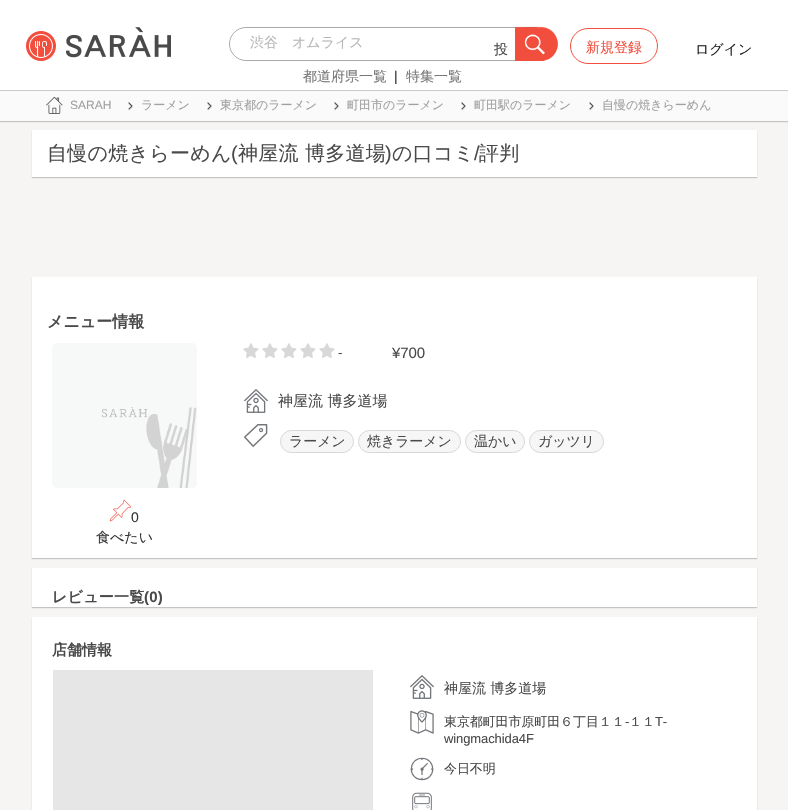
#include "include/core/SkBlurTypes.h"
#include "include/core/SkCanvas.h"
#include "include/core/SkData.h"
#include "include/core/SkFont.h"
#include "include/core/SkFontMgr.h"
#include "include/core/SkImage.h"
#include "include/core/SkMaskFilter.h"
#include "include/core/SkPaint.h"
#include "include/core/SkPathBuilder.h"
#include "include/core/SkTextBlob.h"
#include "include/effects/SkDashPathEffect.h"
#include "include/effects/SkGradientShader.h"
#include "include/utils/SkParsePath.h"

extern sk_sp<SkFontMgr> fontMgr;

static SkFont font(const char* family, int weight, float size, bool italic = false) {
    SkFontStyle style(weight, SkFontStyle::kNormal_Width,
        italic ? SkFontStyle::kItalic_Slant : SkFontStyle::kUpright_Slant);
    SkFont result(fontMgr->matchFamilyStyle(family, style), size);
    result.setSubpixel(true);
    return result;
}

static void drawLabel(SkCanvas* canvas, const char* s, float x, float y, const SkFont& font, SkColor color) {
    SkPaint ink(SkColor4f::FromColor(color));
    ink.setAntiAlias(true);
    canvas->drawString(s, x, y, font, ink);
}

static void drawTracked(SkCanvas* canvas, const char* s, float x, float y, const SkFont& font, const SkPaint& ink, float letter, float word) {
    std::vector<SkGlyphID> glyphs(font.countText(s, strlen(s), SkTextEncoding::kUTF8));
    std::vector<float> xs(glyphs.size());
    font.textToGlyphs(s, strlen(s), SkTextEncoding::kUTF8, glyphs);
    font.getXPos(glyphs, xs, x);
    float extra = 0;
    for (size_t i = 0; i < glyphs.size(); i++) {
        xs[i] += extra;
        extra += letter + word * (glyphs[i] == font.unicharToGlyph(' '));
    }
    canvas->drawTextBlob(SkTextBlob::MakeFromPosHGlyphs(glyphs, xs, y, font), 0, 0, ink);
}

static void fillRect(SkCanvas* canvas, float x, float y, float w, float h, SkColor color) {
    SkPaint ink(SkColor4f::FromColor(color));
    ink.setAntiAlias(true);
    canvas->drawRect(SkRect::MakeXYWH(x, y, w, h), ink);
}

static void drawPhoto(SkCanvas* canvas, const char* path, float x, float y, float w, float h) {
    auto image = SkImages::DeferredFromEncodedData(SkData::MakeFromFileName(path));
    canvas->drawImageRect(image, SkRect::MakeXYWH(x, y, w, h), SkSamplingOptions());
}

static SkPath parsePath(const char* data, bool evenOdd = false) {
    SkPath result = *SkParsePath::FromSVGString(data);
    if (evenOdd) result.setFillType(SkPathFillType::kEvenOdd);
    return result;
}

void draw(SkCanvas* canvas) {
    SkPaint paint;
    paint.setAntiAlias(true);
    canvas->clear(0xFFF7F4F4);
    paint.setColor(0x33000000);
    paint.setMaskFilter(SkMaskFilter::MakeBlur(kNormal_SkBlurStyle, 0.5f));
    canvas->drawRect(SkRect::MakeXYWH(0, 92, 788, 30), paint);
    paint.setMaskFilter(nullptr);
    fillRect(canvas, 0, 0, 788, 90, 0xFFFFFFFF);
    fillRect(canvas, 0, 90, 788, 1, 0xFFCDCACA);
    drawPhoto(canvas, "assets/img1.png", 26, 27, 145, 34);
    paint.setStroke(true);
    paint.setStrokeWidth(1);
    paint.setColor(0xFFAAAAAA);
    canvas->drawPath(parsePath("M246 27.5H525.5V60.5H246C237 60.5 229.5 53 229.5 44C229.5 35 237 27.5 246 27.5Z"), paint);
    SkFont font1 = font("WenQuanYi Zen Hei", 500, 14);
    drawLabel(canvas, "渋谷　オムライス", 250, 47, font1, 0xFFB7B7B7);
    paint.setColor(0xFF767676);
    canvas->drawRoundRect(SkRect::MakeXYWH(523.5f, 27.5f, 14, 33), 1.5f, 1.5f, paint);
    drawPhoto(canvas, "assets/img2.png", 515, 26, 43, 35);
    drawLabel(canvas, "都道府県一覧", 303, 81, font1, 0xFF777777);
    SkFont font2 = font("Liberation Sans", 400, 14);
    drawLabel(canvas, "|", 394, 81, font2, 0xFF333333);
    drawLabel(canvas, "特集一覧", 406, 81, font1, 0xFF777777);
    drawLabel(canvas, "投", 494, 54, font1, 0xFF4A4A4A);
    paint.setColor(0xFFF24E3D);
    canvas->drawRoundRect(SkRect::MakeXYWH(570.5f, 28.5f, 87, 35), 17.5f, 17.5f, paint);
    drawLabel(canvas, "新規登録", 586, 52, font1, 0xFFF24E3D);
    drawLabel(canvas, "ログイン", 695, 54, font1, 0xFF212121);
    fillRect(canvas, 0, 91, 788, 30, 0xFFFAFAFA);
    drawPhoto(canvas, "assets/img3.png", 46, 96, 17, 18);
    SkFont font3 = font("Liberation Sans", 400, 12);
    drawLabel(canvas, "SARAH", 70, 109, font3, 0xFFA0A0A0);
    drawPhoto(canvas, "assets/img4.png", 128, 102, 5, 9);
    SkFont font4 = font("WenQuanYi Zen Hei", 500, 12);
    drawLabel(canvas, "ラーメン", 141, 109, font4, 0xFFA0A0A0);
    drawPhoto(canvas, "assets/img4.png", 207, 102, 5, 9);
    drawLabel(canvas, "東京都のラーメン", 220, 109, font4, 0xFFA0A0A0);
    drawPhoto(canvas, "assets/img4.png", 334, 102, 5, 9);
    drawLabel(canvas, "町田市のラーメン", 347, 109, font4, 0xFFA0A0A0);
    drawPhoto(canvas, "assets/img4.png", 461, 102, 5, 9);
    drawLabel(canvas, "町田駅のラーメン", 474, 109, font4, 0xFFA0A0A0);
    drawPhoto(canvas, "assets/img4.png", 589, 102, 5, 9);
    drawLabel(canvas, "自慢の焼きらーめん", 602, 109, font4, 0xFFA0A0A0);
    paint.setStroke(false);
    paint.setColor(0x33000000);
    paint.setMaskFilter(SkMaskFilter::MakeBlur(kNormal_SkBlurStyle, 0.5f));
    canvas->drawRect(SkRect::MakeXYWH(32, 131, 725, 47), paint);
    paint.setMaskFilter(nullptr);
    fillRect(canvas, 32, 130, 725, 47, 0xFFFFFFFF);
    SkFont font5 = font("WenQuanYi Zen Hei", 500, 20);
    paint.setColor(0xFF4A4A4A);
    drawTracked(canvas, "自慢の焼きらーめん", 47, 160, font5, paint, 0.25f, 0);
    SkFont font6 = font("Liberation Sans", 400, 20);
    drawTracked(canvas, "(", 231, 160, font6, paint, 0.25f, 0);
    drawTracked(canvas, "神屋流 博多道場", 238, 160, font5, paint, 0.25f, 0);
    drawTracked(canvas, ")", 385, 160, font6, paint, 0.25f, 0);
    drawTracked(canvas, "の口コミ", 392, 160, font5, paint, 0.25f, 0);
    drawTracked(canvas, "/", 474, 160, font6, paint, 0.25f, 0);
    drawTracked(canvas, "評判", 479, 160, font5, paint, 0.25f, 0);
    paint.setColor(0x33000000);
    paint.setMaskFilter(SkMaskFilter::MakeBlur(kNormal_SkBlurStyle, 0.5f));
    canvas->drawRect(SkRect::MakeXYWH(32, 278, 725, 281), paint);
    paint.setMaskFilter(nullptr);
    fillRect(canvas, 32, 277, 725, 281, 0xFFFFFFFF);
    SkFont font7 = font("WenQuanYi Zen Hei", 700, 16);
    drawLabel(canvas, "メニュー情報", 47, 327, font7, 0xFF4A4A4A);
    drawPhoto(canvas, "assets/img5.png", 243, 343, 16, 15);
    drawPhoto(canvas, "assets/img5.png", 262, 343, 16, 15);
    drawPhoto(canvas, "assets/img5.png", 281, 343, 16, 15);
    drawPhoto(canvas, "assets/img5.png", 300, 343, 16, 15);
    drawPhoto(canvas, "assets/img5.png", 319, 343, 16, 15);
    SkFont font8 = font("Liberation Sans", 400, 13);
    drawLabel(canvas, "-", 338, 357, font8, 0xFF4A4A4A);
    SkFont font9 = font("Liberation Sans", 400, 15);
    paint.setColor(0xFF4A4A4A);
    drawTracked(canvas, "¥700", 392, 358, font9, paint, -0.1f, 0);
    drawPhoto(canvas, "assets/img6.png", 244, 389, 24, 24);
    SkFont font10 = font("WenQuanYi Zen Hei", 500, 15);
    drawLabel(canvas, "神屋流 博多道場", 278, 406, font10, 0xFF4A4A4A);
    drawPhoto(canvas, "assets/img7.png", 244, 424, 24, 23);
    paint.setColor(0xFFF6F6F6);
    canvas->drawRoundRect(SkRect::MakeXYWH(280.5f, 430.5f, 73, 22), 11, 11, paint);
    paint.setStroke(true);
    paint.setColor(0xFFD8D8D8);
    canvas->drawRoundRect(SkRect::MakeXYWH(280.5f, 430.5f, 73, 22), 11, 11, paint);
    paint.setStroke(false);
    paint.setColor(0xFF4A4A4A);
    drawTracked(canvas, "ラーメン", 289, 446, font1, paint, -0.1f, 0);
    paint.setColor(0xFFF6F6F6);
    canvas->drawRoundRect(SkRect::MakeXYWH(358.5f, 430.5f, 102, 22), 11, 11, paint);
    paint.setStroke(true);
    paint.setColor(0xFFD8D8D8);
    canvas->drawRoundRect(SkRect::MakeXYWH(358.5f, 430.5f, 102, 22), 11, 11, paint);
    paint.setStroke(false);
    paint.setColor(0xFF4A4A4A);
    drawTracked(canvas, "焼きラーメン", 367, 446, font1, paint, -0.1f, 0);
    paint.setColor(0xFFF6F6F6);
    canvas->drawRoundRect(SkRect::MakeXYWH(465.5f, 430.5f, 59, 22), 11, 11, paint);
    paint.setStroke(true);
    paint.setColor(0xFFD8D8D8);
    canvas->drawRoundRect(SkRect::MakeXYWH(465.5f, 430.5f, 59, 22), 11, 11, paint);
    paint.setStroke(false);
    paint.setColor(0xFF4A4A4A);
    drawTracked(canvas, "温かい", 474, 446, font1, paint, -0.1f, 0);
    paint.setColor(0xFFF6F6F6);
    canvas->drawRoundRect(SkRect::MakeXYWH(529.5f, 430.5f, 74, 22), 11, 11, paint);
    paint.setStroke(true);
    paint.setColor(0xFFD8D8D8);
    canvas->drawRoundRect(SkRect::MakeXYWH(529.5f, 430.5f, 74, 22), 11, 11, paint);
    paint.setStroke(false);
    paint.setColor(0xFF4A4A4A);
    drawTracked(canvas, "ガッツリ", 538, 446, font1, paint, -0.1f, 0);
    drawPhoto(canvas, "assets/img8.png", 52, 343, 145, 145);
    drawPhoto(canvas, "assets/img9.png", 109, 499, 22, 23);
    drawLabel(canvas, "0", 131, 522, font2, 0xFF333333);
    drawLabel(canvas, "食べたい", 96, 542, font1, 0xFF333333);
    paint.setColor(0x33000000);
    paint.setMaskFilter(SkMaskFilter::MakeBlur(kNormal_SkBlurStyle, 0.5f));
    canvas->drawRect(SkRect::MakeXYWH(32, 569, 725, 39), paint);
    paint.setMaskFilter(nullptr);
    fillRect(canvas, 32, 568, 725, 39, 0xFFFFFFFF);
    SkFont font11 = font("WenQuanYi Zen Hei", 700, 15);
    paint.setColor(0xFF4A4A4A);
    drawTracked(canvas, "レビュー一覧", 52, 602, font11, paint, 0.25f, 0);
    SkFont font12 = font("Liberation Sans", 700, 15);
    drawTracked(canvas, "(0)", 144, 602, font12, paint, 0.25f, 0);
    paint.setColor(0x33000000);
    paint.setMaskFilter(SkMaskFilter::MakeBlur(kNormal_SkBlurStyle, 0.5f));
    canvas->drawRect(SkRect::MakeXYWH(32, 618, 725, 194), paint);
    paint.setMaskFilter(nullptr);
    fillRect(canvas, 32, 617, 725, 193, 0xFFFFFFFF);
    drawLabel(canvas, "店舗情報", 52, 655, font11, 0xFF4A4A4A);
    fillRect(canvas, 53, 670, 320, 140, 0xFFE6E6E6);
    drawPhoto(canvas, "assets/img6.png", 410, 675, 24, 24);
    drawLabel(canvas, "神屋流 博多道場", 444, 693, font1, 0xFF4A4A4A);
    drawPhoto(canvas, "assets/img10.png", 410, 710, 24, 24);
    SkFont font13 = font("WenQuanYi Zen Hei", 500, 13);
    paint.setColor(0xFF4A4A4A);
    drawTracked(canvas, "東京都町田市原町田６丁目１１", 444, 726, font13, paint, -0.1f, 0);
    drawTracked(canvas, "-", 625, 726, font8, paint, -0.1f, 0);
    drawTracked(canvas, "１１", 629, 726, font13, paint, -0.1f, 0);
    drawTracked(canvas, "T-", 655, 726, font8, paint, -0.1f, 0);
    drawTracked(canvas, "wingmachida4F", 444, 743, font8, paint, -0.1f, 0);
    drawPhoto(canvas, "assets/img11.png", 410, 757, 24, 24);
    drawTracked(canvas, "今日不明", 444, 773, font13, paint, -0.1f, 0);
    drawPhoto(canvas, "assets/img12.png", 412, 792, 20, 18);
}
